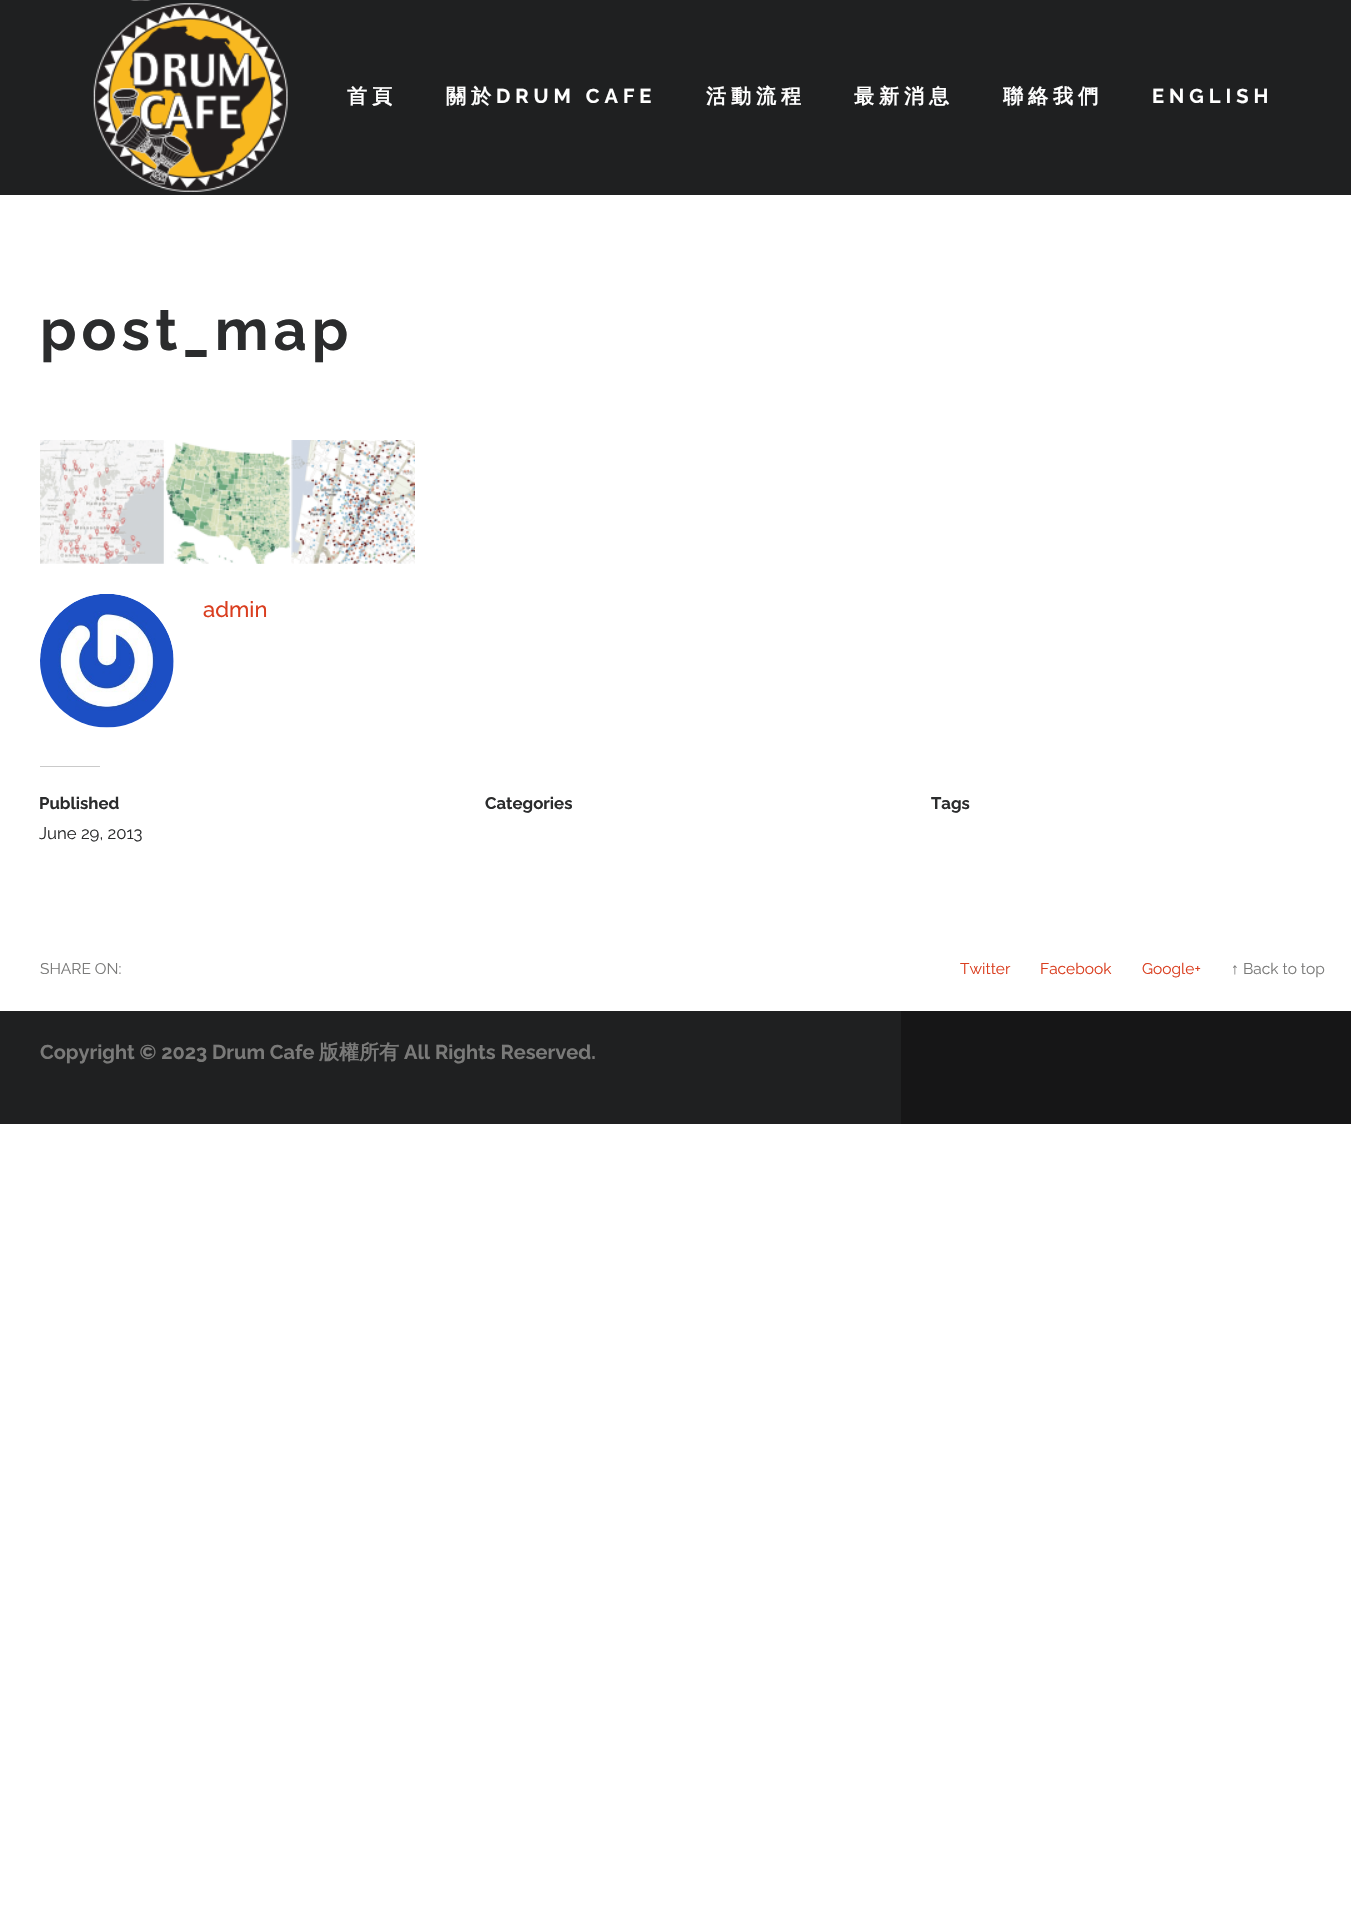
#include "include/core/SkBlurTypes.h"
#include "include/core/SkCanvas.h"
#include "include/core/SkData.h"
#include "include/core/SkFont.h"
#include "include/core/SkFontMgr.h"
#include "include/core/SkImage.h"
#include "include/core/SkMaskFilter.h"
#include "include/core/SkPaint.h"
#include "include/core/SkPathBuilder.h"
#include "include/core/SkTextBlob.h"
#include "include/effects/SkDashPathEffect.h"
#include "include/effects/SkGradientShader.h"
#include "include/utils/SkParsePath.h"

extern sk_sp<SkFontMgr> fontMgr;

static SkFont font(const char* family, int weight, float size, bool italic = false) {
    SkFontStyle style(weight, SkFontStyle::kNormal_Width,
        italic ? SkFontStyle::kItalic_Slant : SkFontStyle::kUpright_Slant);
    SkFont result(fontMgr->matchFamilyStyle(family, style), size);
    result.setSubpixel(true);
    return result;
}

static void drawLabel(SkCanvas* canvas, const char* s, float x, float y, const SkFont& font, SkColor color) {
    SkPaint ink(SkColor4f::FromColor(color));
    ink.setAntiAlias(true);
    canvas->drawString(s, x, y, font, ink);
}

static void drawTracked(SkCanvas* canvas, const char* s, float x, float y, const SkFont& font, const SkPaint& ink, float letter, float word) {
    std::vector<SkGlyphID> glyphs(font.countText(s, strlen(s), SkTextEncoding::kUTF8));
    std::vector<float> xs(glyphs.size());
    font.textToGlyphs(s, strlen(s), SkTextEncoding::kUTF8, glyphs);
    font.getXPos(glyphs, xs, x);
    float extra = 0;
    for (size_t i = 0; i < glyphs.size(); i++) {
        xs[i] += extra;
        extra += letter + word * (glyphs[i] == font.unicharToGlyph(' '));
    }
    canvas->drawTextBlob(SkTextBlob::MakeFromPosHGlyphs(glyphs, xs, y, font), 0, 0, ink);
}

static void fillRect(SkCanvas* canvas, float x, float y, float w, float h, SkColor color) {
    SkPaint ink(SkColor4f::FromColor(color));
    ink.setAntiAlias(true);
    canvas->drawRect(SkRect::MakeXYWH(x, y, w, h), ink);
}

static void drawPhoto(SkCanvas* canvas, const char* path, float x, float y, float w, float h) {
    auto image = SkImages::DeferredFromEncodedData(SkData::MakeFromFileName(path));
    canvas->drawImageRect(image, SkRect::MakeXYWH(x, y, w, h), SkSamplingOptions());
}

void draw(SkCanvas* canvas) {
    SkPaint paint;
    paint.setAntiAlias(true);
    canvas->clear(0xFFFFFFFF);
    fillRect(canvas, 0, 0, 1351, 195, 0xFF1F2021);
    drawPhoto(canvas, "assets/img1.png", 130, 0, 21, 1);
    drawPhoto(canvas, "assets/img2.png", 93, 3, 195, 189);
    SkFont font1 = font("WenQuanYi Zen Hei", 700, 20);
    paint.setColor(0xFFFFFFFF);
    drawTracked(canvas, "首頁", 347, 103, font1, paint, 5, 0);
    drawTracked(canvas, "關於", 446, 103, font1, paint, 5, 0);
    SkFont font2 = font("Raleway", 700, 20);
    drawTracked(canvas, "DRUM CAFE", 496, 103, font2, paint, 5, 0);
    drawTracked(canvas, "活動流程", 706, 103, font1, paint, 5, 0);
    drawTracked(canvas, "最新消息", 854, 103, font1, paint, 5, 0);
    drawTracked(canvas, "聯絡我們", 1003, 103, font1, paint, 5, 0);
    drawTracked(canvas, "ENGLISH", 1152, 103, font2, paint, 5, 0);
    SkFont font3 = font("Raleway", 700, 57.75f);
    paint.setColor(0xFF2B2C2D);
    drawTracked(canvas, "post_map", 40, 350, font3, paint, 5, 0);
    drawPhoto(canvas, "assets/img3.png", 40, 440, 375, 124);
    drawPhoto(canvas, "assets/img4.png", 40, 594, 134, 134);
    SkFont font4 = font("Raleway", 500, 22);
    drawLabel(canvas, "admin", 203, 617, font4, 0xFFDA3E1F);
    fillRect(canvas, 40, 766, 60, 1, 0xFFCACACA);
    SkFont font5 = font("Raleway", 700, 16.75f);
    drawLabel(canvas, "Published", 39, 809, font5, 0xFF2B2C2D);
    SkFont font6 = font("Raleway", 400, 16.75f);
    drawLabel(canvas, "June 29, 2013", 39, 839, font6, 0xFF2B2C2D);
    drawLabel(canvas, "Categories", 485, 809, font5, 0xFF2B2C2D);
    drawLabel(canvas, "Tags", 931, 809, font5, 0xFF2B2C2D);
    SkFont font7 = font("Raleway", 400, 15.5f);
    drawLabel(canvas, "SHARE ON:", 40, 974, font7, 0xFF7A7A79);
    drawLabel(canvas, "Twitter", 960, 974, font7, 0xFFDA3E1F);
    drawLabel(canvas, "Facebook", 1040, 974, font7, 0xFFDA3E1F);
    drawLabel(canvas, "Google+", 1142, 974, font7, 0xFFDA3E1F);
    SkFont font8 = font("Liberation Sans", 400, 15.5f);
    drawLabel(canvas, "↑", 1231, 974, font8, 0xFF7A7A79);
    drawLabel(canvas, "Back to top", 1243, 974, font7, 0xFF7A7A79);
    fillRect(canvas, 0, 1011, 901, 113, 0xFF1F2021);
    drawLabel(canvas, "Copyright © 2023 Drum Cafe", 40, 1059, font2, 0xFF7A7A79);
    drawLabel(canvas, "版權所有", 319, 1059, font1, 0xFF7A7A79);
    drawLabel(canvas, "All Rights Reserved.", 404, 1059, font2, 0xFF7A7A79);
    fillRect(canvas, 901, 1011, 450, 113, 0xFF161617);
}
